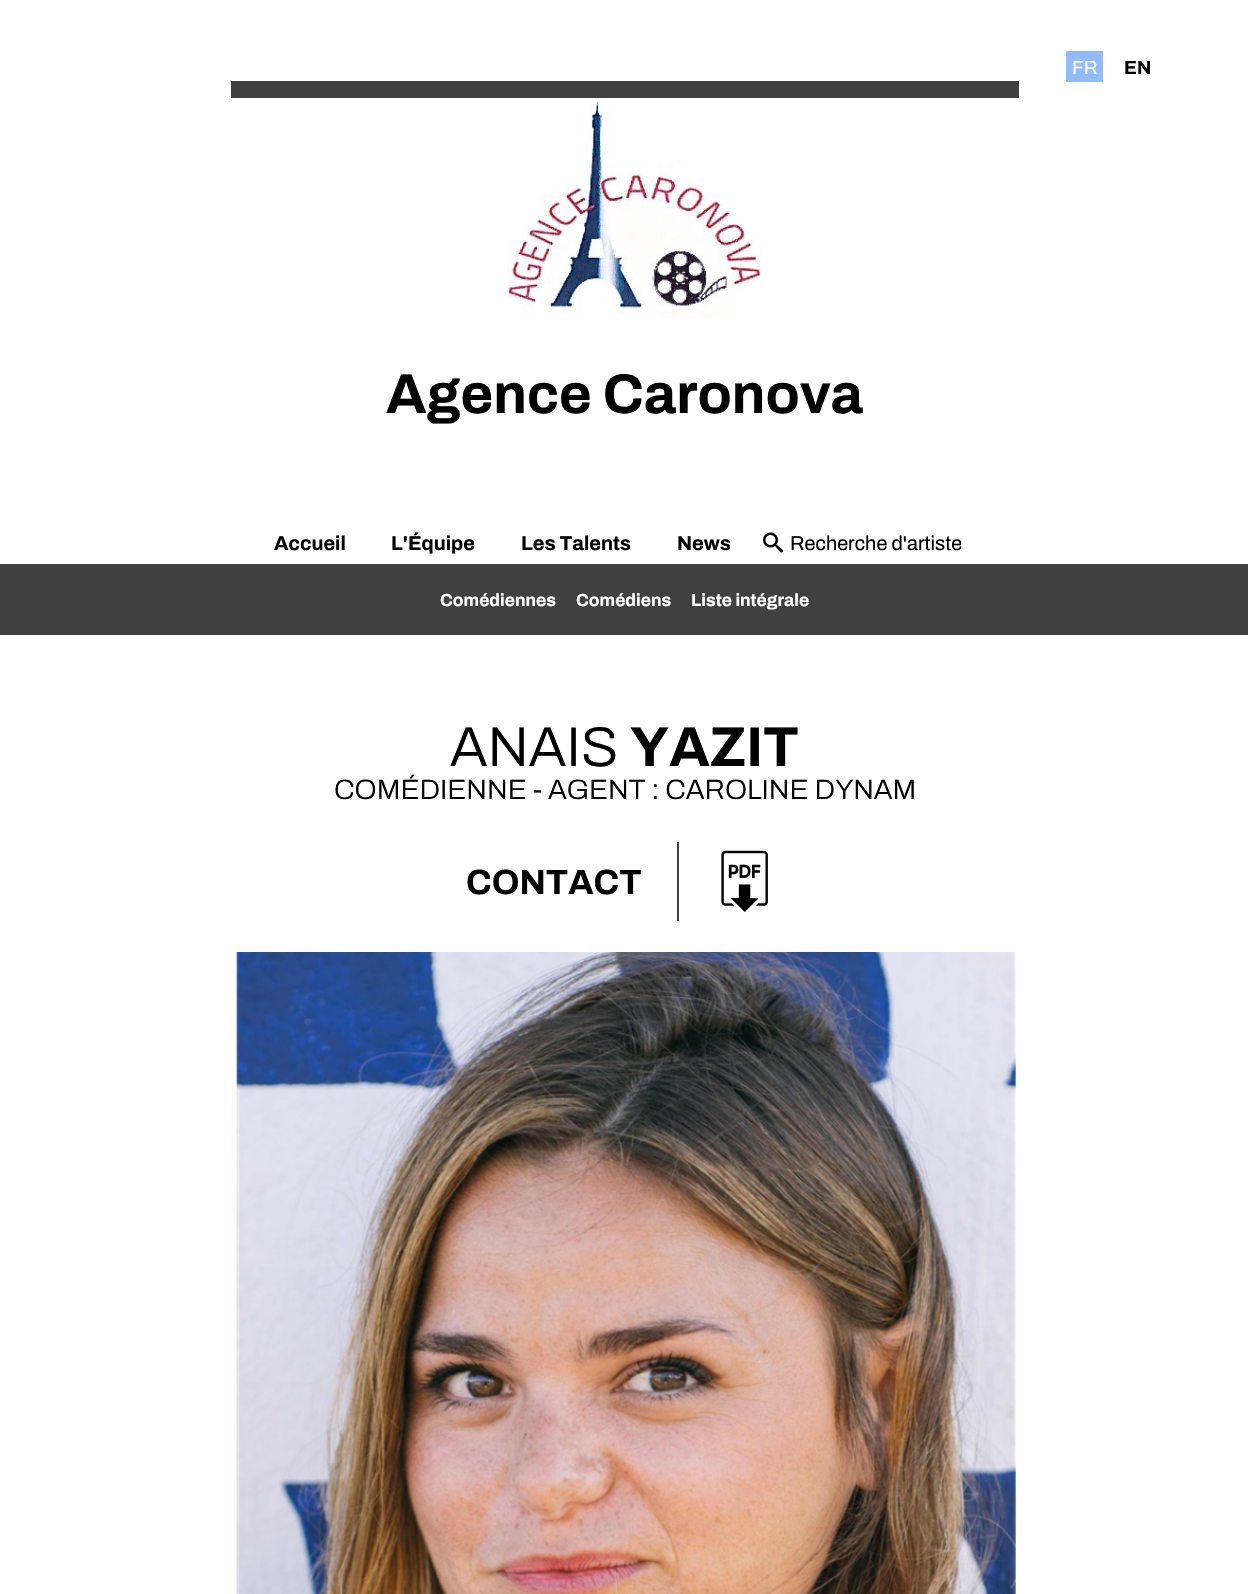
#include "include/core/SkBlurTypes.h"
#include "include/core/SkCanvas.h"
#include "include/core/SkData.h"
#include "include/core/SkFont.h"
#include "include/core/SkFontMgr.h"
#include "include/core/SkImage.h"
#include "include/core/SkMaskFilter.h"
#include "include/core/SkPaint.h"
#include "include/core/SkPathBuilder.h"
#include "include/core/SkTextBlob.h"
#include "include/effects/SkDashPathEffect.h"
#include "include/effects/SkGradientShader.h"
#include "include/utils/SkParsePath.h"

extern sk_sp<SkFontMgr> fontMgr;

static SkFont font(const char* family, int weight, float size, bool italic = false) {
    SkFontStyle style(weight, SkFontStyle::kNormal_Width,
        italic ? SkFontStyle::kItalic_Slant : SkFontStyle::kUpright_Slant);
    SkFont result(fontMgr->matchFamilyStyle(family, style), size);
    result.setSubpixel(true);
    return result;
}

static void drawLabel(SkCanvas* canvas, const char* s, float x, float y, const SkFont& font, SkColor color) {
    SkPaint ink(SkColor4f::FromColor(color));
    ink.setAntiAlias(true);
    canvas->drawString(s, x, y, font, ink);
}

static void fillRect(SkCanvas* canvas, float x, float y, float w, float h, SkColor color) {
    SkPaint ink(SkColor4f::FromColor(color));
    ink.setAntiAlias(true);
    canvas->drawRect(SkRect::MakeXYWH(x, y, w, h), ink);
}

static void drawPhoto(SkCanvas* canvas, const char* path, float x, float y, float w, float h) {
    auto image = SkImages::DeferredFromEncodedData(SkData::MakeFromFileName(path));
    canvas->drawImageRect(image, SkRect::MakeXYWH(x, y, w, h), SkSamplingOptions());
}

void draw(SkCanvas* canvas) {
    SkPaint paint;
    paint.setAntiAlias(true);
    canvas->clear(0xFFFFFFFF);
    fillRect(canvas, 1066, 51, 37, 31, 0xFF91BCF7);
    SkFont font1 = font("Archivo", 400, 19);
    drawLabel(canvas, "FR", 1072, 74, font1, 0xFFFFFFFF);
    SkFont font2 = font("Archivo", 700, 19);
    drawLabel(canvas, "EN", 1124, 74, font2, 0xFF000000);
    fillRect(canvas, 231, 81, 788, 17, 0xFF404040);
    drawPhoto(canvas, "assets/img1.png", 507, 101, 255, 218);
    SkFont font3 = font("Archivo", 700, 56);
    drawLabel(canvas, "Agence Caronova", 386, 413, font3, 0xFF000000);
    SkFont font4 = font("Archivo", 700, 20);
    drawLabel(canvas, "Accueil", 274, 550, font4, 0xFF000000);
    drawLabel(canvas, "L'Équipe", 391, 550, font4, 0xFF000000);
    drawLabel(canvas, "Les Talents", 521, 550, font4, 0xFF000000);
    fillRect(canvas, 0, 564, 1248, 71, 0xFF404040);
    SkFont font5 = font("Archivo", 700, 17.5f);
    drawLabel(canvas, "Comédiennes", 440, 606, font5, 0xFFFFFFFF);
    drawLabel(canvas, "Comédiens", 576, 606, font5, 0xFFFFFFFF);
    drawLabel(canvas, "Liste intégrale", 691, 606, font5, 0xFFFFFFFF);
    drawPhoto(canvas, "assets/img2.png", 763, 532, 20, 21);
    canvas->save();
    canvas->clipRect(SkRect::MakeXYWH(791, 532, 170, 21));
    SkFont font6 = font("Archivo", 400, 20);
    drawLabel(canvas, "Recherche d'artiste", 790, 550, font6, 0xFF000000);
    canvas->restore();
    drawLabel(canvas, "News", 677, 550, font4, 0xFF000000);
    SkFont font7 = font("Archivo", 300, 56);
    drawLabel(canvas, "ANAIS", 450, 766, font7, 0xFF000000);
    drawLabel(canvas, "YAZIT", 630, 766, font3, 0xFF000000);
    SkFont font8 = font("Archivo", 300, 28);
    drawLabel(canvas, "COMÉDIENNE - AGENT : CAROLINE DYNAM", 334, 799, font8, 0xFF000000);
    SkFont font9 = font("Archivo", 700, 35);
    drawLabel(canvas, "CONTACT", 466, 894, font9, 0xFF000000);
    fillRect(canvas, 677, 842, 2, 79, 0xFF3E3E3E);
    drawPhoto(canvas, "assets/img3.png", 721, 850, 47, 62);
    drawPhoto(canvas, "assets/img4.png", 236, 952, 780, 642);
}
